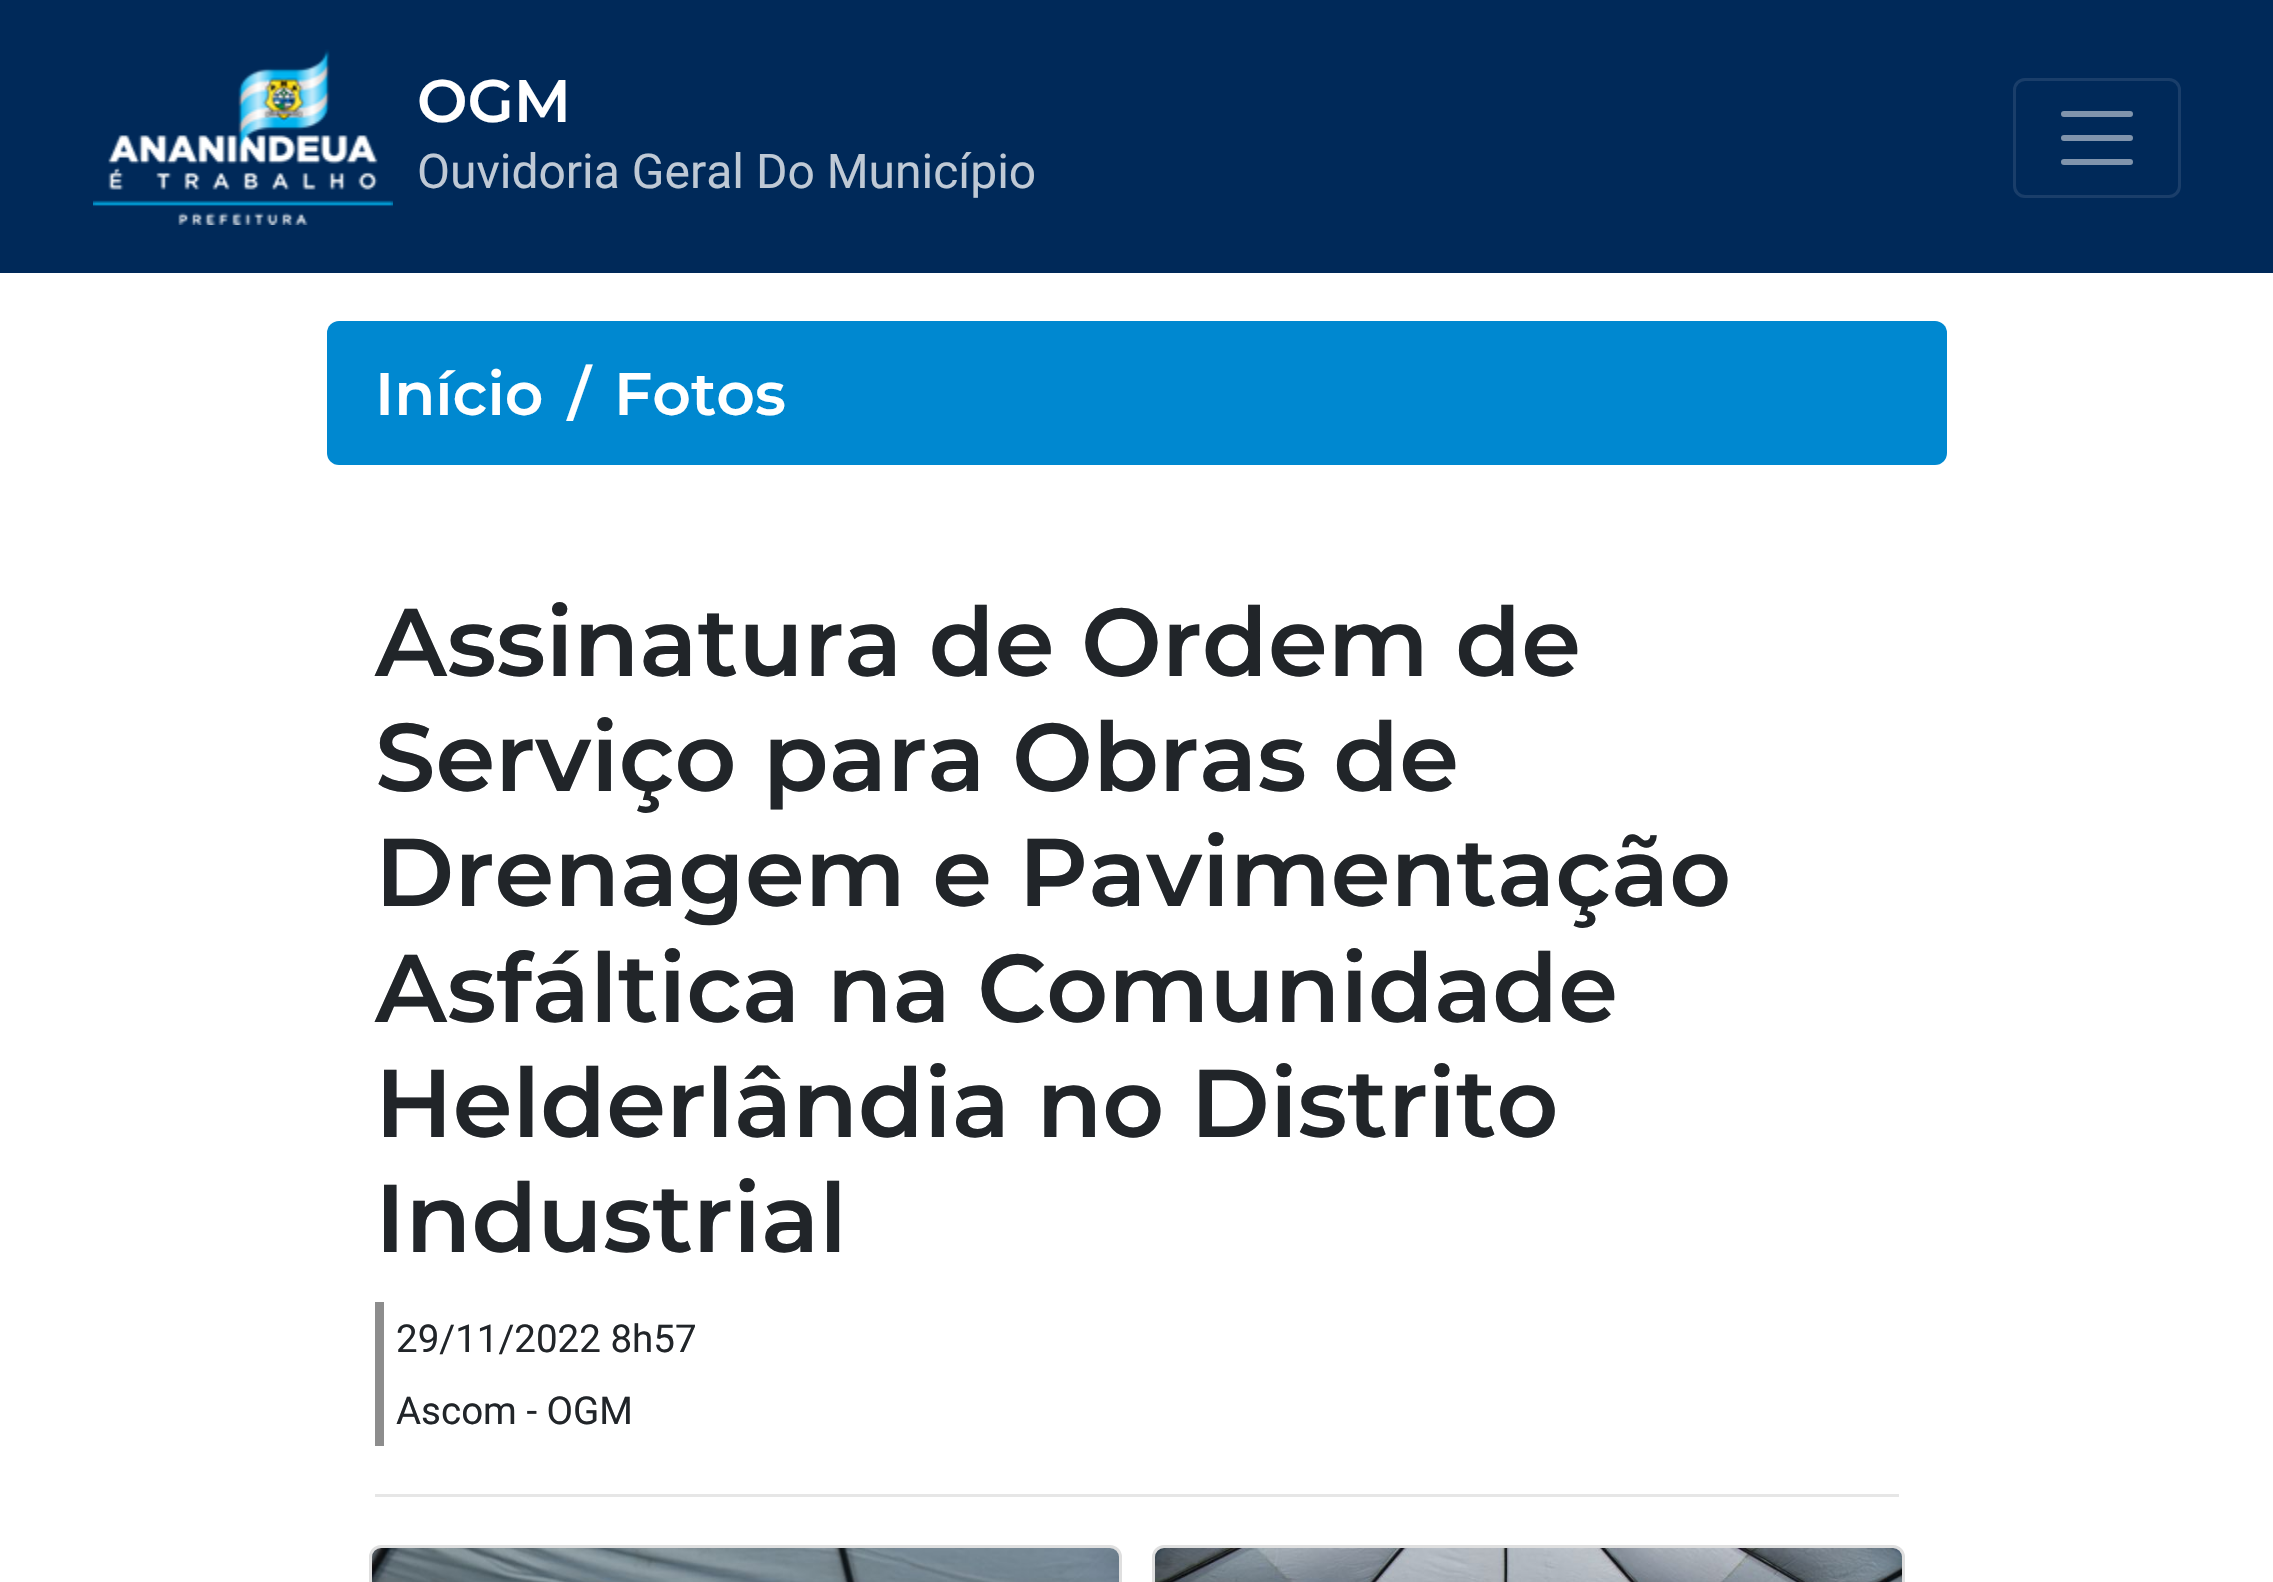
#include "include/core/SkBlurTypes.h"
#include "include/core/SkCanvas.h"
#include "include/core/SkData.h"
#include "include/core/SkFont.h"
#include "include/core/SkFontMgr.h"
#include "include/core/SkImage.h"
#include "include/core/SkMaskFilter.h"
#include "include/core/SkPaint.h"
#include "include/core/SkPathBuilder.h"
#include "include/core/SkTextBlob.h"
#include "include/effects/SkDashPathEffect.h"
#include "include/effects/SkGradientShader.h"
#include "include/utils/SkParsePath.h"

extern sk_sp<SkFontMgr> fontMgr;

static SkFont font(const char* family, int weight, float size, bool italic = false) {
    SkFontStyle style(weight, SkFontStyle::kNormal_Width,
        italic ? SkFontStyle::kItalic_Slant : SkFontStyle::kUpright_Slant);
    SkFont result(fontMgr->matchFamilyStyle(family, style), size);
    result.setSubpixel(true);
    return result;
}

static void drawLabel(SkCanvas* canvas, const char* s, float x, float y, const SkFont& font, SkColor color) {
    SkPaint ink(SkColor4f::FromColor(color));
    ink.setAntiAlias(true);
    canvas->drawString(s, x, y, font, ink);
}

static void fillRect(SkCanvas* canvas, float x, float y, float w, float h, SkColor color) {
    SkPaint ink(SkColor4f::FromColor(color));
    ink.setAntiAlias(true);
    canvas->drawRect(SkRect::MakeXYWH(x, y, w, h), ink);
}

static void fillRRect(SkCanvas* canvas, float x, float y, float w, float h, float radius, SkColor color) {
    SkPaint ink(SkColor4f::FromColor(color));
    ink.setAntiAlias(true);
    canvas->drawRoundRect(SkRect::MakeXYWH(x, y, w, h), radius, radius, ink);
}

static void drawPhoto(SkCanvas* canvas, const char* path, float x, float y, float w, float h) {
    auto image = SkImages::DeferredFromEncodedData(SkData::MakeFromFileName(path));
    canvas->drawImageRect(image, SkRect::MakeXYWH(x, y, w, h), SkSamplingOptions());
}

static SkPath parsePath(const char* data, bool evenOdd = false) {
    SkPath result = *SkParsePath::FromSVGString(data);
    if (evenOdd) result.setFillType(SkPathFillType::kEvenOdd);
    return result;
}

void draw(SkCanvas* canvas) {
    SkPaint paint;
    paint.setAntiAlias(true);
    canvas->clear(0xFFFFFFFF);
    fillRect(canvas, 0, 0, 2273, 273, 0xFF002959);
    drawPhoto(canvas, "assets/img1.png", 93, 49, 300, 176);
    SkFont font1 = font("Montserrat", 600, 60);
    drawLabel(canvas, "OGM", 417, 122, font1, 0xFFFFFFFF);
    SkFont font2 = font("Roboto", 400, 48);
    drawLabel(canvas, "Ouvidoria Geral Do Município", 417, 188, font2, 0xFFBFC9D5);
    paint.setStroke(true);
    paint.setStrokeWidth(3);
    paint.setColor(0xFF1A3E6A);
    canvas->drawRoundRect(SkRect::MakeXYWH(2014.5f, 79.5f, 165, 117), 10.5f, 10.5f, paint);
    paint.setStrokeWidth(6);
    paint.setStrokeCap(SkPaint::kRound_Cap);
    paint.setColor(0xFF8094AC);
    canvas->drawPath(parsePath("M2064 114H2130M2064 138H2130M2064 162H2130"), paint);
    fillRRect(canvas, 327, 321, 1620, 144, 12, 0xFF0088D0);
    drawLabel(canvas, "Início", 375, 415, font1, 0xFFFFFFFF);
    drawLabel(canvas, "/", 568, 415, font1, 0xFFFFFFFF);
    drawLabel(canvas, "Fotos", 614, 415, font1, 0xFFFFFFFF);
    SkFont font3 = font("Montserrat", 600, 96);
    drawLabel(canvas, "Assinatura de Ordem de", 375, 676, font3, 0xFF212529);
    drawLabel(canvas, "Serviço para Obras de", 375, 791, font3, 0xFF212529);
    drawLabel(canvas, "Drenagem e Pavimentação", 375, 906, font3, 0xFF212529);
    drawLabel(canvas, "Asfáltica na Comunidade", 375, 1022, font3, 0xFF212529);
    drawLabel(canvas, "Helderlândia no Distrito", 375, 1137, font3, 0xFF212529);
    drawLabel(canvas, "Industrial", 375, 1252, font3, 0xFF212529);
    fillRect(canvas, 375, 1302, 9, 144, 0xFF8D8D8D);
    SkFont font4 = font("Roboto", 400, 38.5f);
    drawLabel(canvas, "29/11/2022 8h57", 396, 1352, font4, 0xFF212529);
    drawLabel(canvas, "Ascom - OGM", 396, 1424, font4, 0xFF212529);
    fillRect(canvas, 375, 1494, 1524, 3, 0xFFE6E6E6);
    paint.setStrokeWidth(3);
    paint.setStrokeCap(SkPaint::kButt_Cap);
    paint.setColor(0xFFDFDFDF);
    canvas->drawRoundRect(SkRect::MakeXYWH(370.5f, 1546.5f, 750, 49), 10.5f, 10.5f, paint);
    drawPhoto(canvas, "assets/img2.png", 372, 1548, 747, 34);
    canvas->drawRoundRect(SkRect::MakeXYWH(1153.5f, 1546.5f, 750, 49), 10.5f, 10.5f, paint);
    drawPhoto(canvas, "assets/img3.png", 1155, 1548, 747, 34);
}
